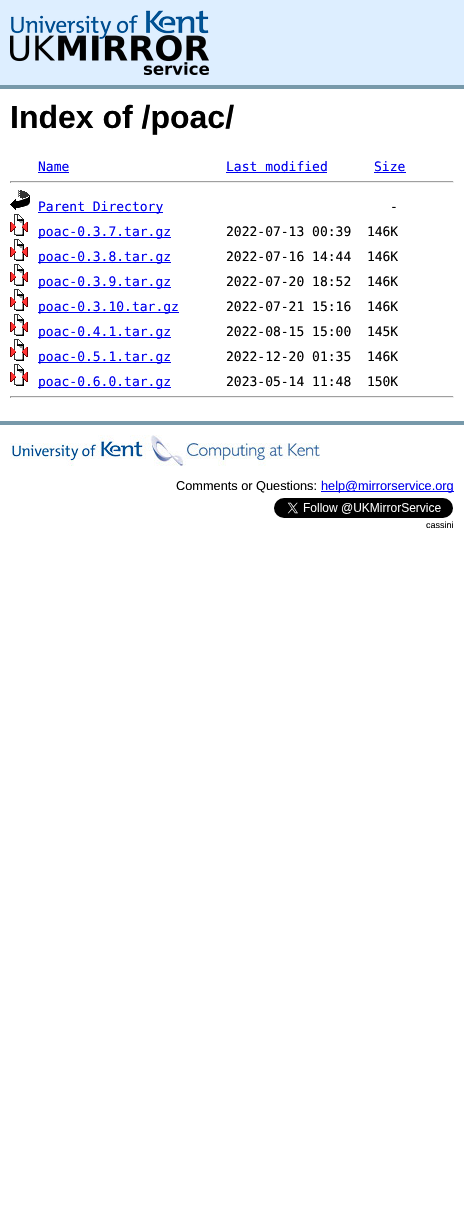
#include "include/core/SkBlurTypes.h"
#include "include/core/SkCanvas.h"
#include "include/core/SkData.h"
#include "include/core/SkFont.h"
#include "include/core/SkFontMgr.h"
#include "include/core/SkImage.h"
#include "include/core/SkMaskFilter.h"
#include "include/core/SkPaint.h"
#include "include/core/SkPathBuilder.h"
#include "include/core/SkTextBlob.h"
#include "include/effects/SkDashPathEffect.h"
#include "include/effects/SkGradientShader.h"
#include "include/utils/SkParsePath.h"

extern sk_sp<SkFontMgr> fontMgr;

static SkFont font(const char* family, int weight, float size, bool italic = false) {
    SkFontStyle style(weight, SkFontStyle::kNormal_Width,
        italic ? SkFontStyle::kItalic_Slant : SkFontStyle::kUpright_Slant);
    SkFont result(fontMgr->matchFamilyStyle(family, style), size);
    result.setSubpixel(true);
    return result;
}

static void drawLabel(SkCanvas* canvas, const char* s, float x, float y, const SkFont& font, SkColor color) {
    SkPaint ink(SkColor4f::FromColor(color));
    ink.setAntiAlias(true);
    canvas->drawString(s, x, y, font, ink);
}

static void fillRect(SkCanvas* canvas, float x, float y, float w, float h, SkColor color) {
    SkPaint ink(SkColor4f::FromColor(color));
    ink.setAntiAlias(true);
    canvas->drawRect(SkRect::MakeXYWH(x, y, w, h), ink);
}

static void drawPhoto(SkCanvas* canvas, const char* path, float x, float y, float w, float h) {
    auto image = SkImages::DeferredFromEncodedData(SkData::MakeFromFileName(path));
    canvas->drawImageRect(image, SkRect::MakeXYWH(x, y, w, h), SkSamplingOptions());
}

void draw(SkCanvas* canvas) {
    SkPaint paint;
    paint.setAntiAlias(true);
    canvas->clear(0xFFFFFFFF);
    fillRect(canvas, 0, 0, 464, 85, 0xFFDDEEFF);
    fillRect(canvas, 0, 85, 464, 4, 0xFF7799AA);
    drawPhoto(canvas, "assets/img1.png", 10, 10, 199, 65);
    SkFont font1 = font("Liberation Sans", 700, 32);
    drawLabel(canvas, "Index of /poac/", 10, 128, font1, 0xFF000000);
    SkFont font2 = font("DejaVu Sans Mono", 400, 13);
    drawLabel(canvas, "Name", 38, 171, font2, 0xFF0000EE);
    fillRect(canvas, 38, 172, 31, 1, 0xFF0000EE);
    drawLabel(canvas, "Last modified", 226, 171, font2, 0xFF0000EE);
    fillRect(canvas, 226, 172, 101, 1, 0xFF0000EE);
    drawLabel(canvas, "Size", 374, 171, font2, 0xFF0000EE);
    fillRect(canvas, 374, 172, 32, 1, 0xFF0000EE);
    fillRect(canvas, 10, 181, 444, 1, 0xFF9F9F9F);
    fillRect(canvas, 453, 181, 1, 2, 0xFFEEEEEE);
    fillRect(canvas, 10, 182, 444, 1, 0xFFEEEEEE);
    fillRect(canvas, 10, 181, 1, 2, 0xFF9F9F9F);
    drawPhoto(canvas, "assets/img2.png", 10, 190, 20, 20);
    fillRect(canvas, 38, 212, 125, 1, 0xFF0000EE);
    drawLabel(canvas, "Parent Directory", 38, 211, font2, 0xFF0000EE);
    drawLabel(canvas, "-", 390, 211, font2, 0xFF000000);
    drawPhoto(canvas, "assets/img3.png", 10, 214, 18, 22);
    fillRect(canvas, 38, 237, 133, 1, 0xFF0000EE);
    drawLabel(canvas, "poac-0.3.7.tar.gz", 38, 236, font2, 0xFF0000EE);
    drawLabel(canvas, "2022-07-13 00:39  146K", 226, 236, font2, 0xFF000000);
    drawPhoto(canvas, "assets/img3.png", 10, 239, 18, 22);
    fillRect(canvas, 38, 262, 133, 1, 0xFF0000EE);
    drawLabel(canvas, "poac-0.3.8.tar.gz", 38, 261, font2, 0xFF0000EE);
    drawLabel(canvas, "2022-07-16 14:44  146K", 226, 261, font2, 0xFF000000);
    drawPhoto(canvas, "assets/img3.png", 10, 264, 18, 22);
    fillRect(canvas, 38, 287, 133, 1, 0xFF0000EE);
    drawLabel(canvas, "poac-0.3.9.tar.gz", 38, 286, font2, 0xFF0000EE);
    drawLabel(canvas, "2022-07-20 18:52  146K", 226, 286, font2, 0xFF000000);
    drawPhoto(canvas, "assets/img3.png", 10, 289, 18, 22);
    fillRect(canvas, 38, 312, 141, 1, 0xFF0000EE);
    drawLabel(canvas, "poac-0.3.10.tar.gz", 38, 311, font2, 0xFF0000EE);
    drawLabel(canvas, "2022-07-21 15:16  146K", 226, 311, font2, 0xFF000000);
    drawPhoto(canvas, "assets/img3.png", 10, 314, 18, 22);
    fillRect(canvas, 38, 337, 133, 1, 0xFF0000EE);
    drawLabel(canvas, "poac-0.4.1.tar.gz", 38, 336, font2, 0xFF0000EE);
    drawLabel(canvas, "2022-08-15 15:00  145K", 226, 336, font2, 0xFF000000);
    drawPhoto(canvas, "assets/img3.png", 10, 339, 18, 22);
    fillRect(canvas, 38, 362, 133, 1, 0xFF0000EE);
    drawLabel(canvas, "poac-0.5.1.tar.gz", 38, 361, font2, 0xFF0000EE);
    drawLabel(canvas, "2022-12-20 01:35  146K", 226, 361, font2, 0xFF000000);
    drawPhoto(canvas, "assets/img3.png", 10, 364, 18, 22);
    fillRect(canvas, 38, 387, 133, 1, 0xFF0000EE);
    drawLabel(canvas, "poac-0.6.0.tar.gz", 38, 386, font2, 0xFF0000EE);
    drawLabel(canvas, "2023-05-14 11:48  150K", 226, 386, font2, 0xFF000000);
    fillRect(canvas, 10, 396, 444, 1, 0xFF9F9F9F);
    fillRect(canvas, 453, 396, 1, 2, 0xFFEEEEEE);
    fillRect(canvas, 10, 397, 444, 1, 0xFFEEEEEE);
    fillRect(canvas, 10, 396, 1, 2, 0xFF9F9F9F);
    fillRect(canvas, 0, 421, 464, 4, 0xFF7799AA);
    drawPhoto(canvas, "assets/img4.png", 10, 435, 310, 31);
    SkFont font3 = font("Liberation Sans", 400, 12.75f);
    drawLabel(canvas, "Comments or Questions:", 176, 490, font3, 0xFF000000);
    fillRect(canvas, 321, 491, 133, 1, 0xFF0000EE);
    drawLabel(canvas, "help@mirrorservice.org", 321, 490, font3, 0xFF0000EE);
    drawPhoto(canvas, "assets/img5.png", 274, 498, 179, 20);
    SkFont font4 = font("Liberation Sans", 400, 9);
    drawLabel(canvas, "cassini", 426, 528, font4, 0xFF000000);
}
